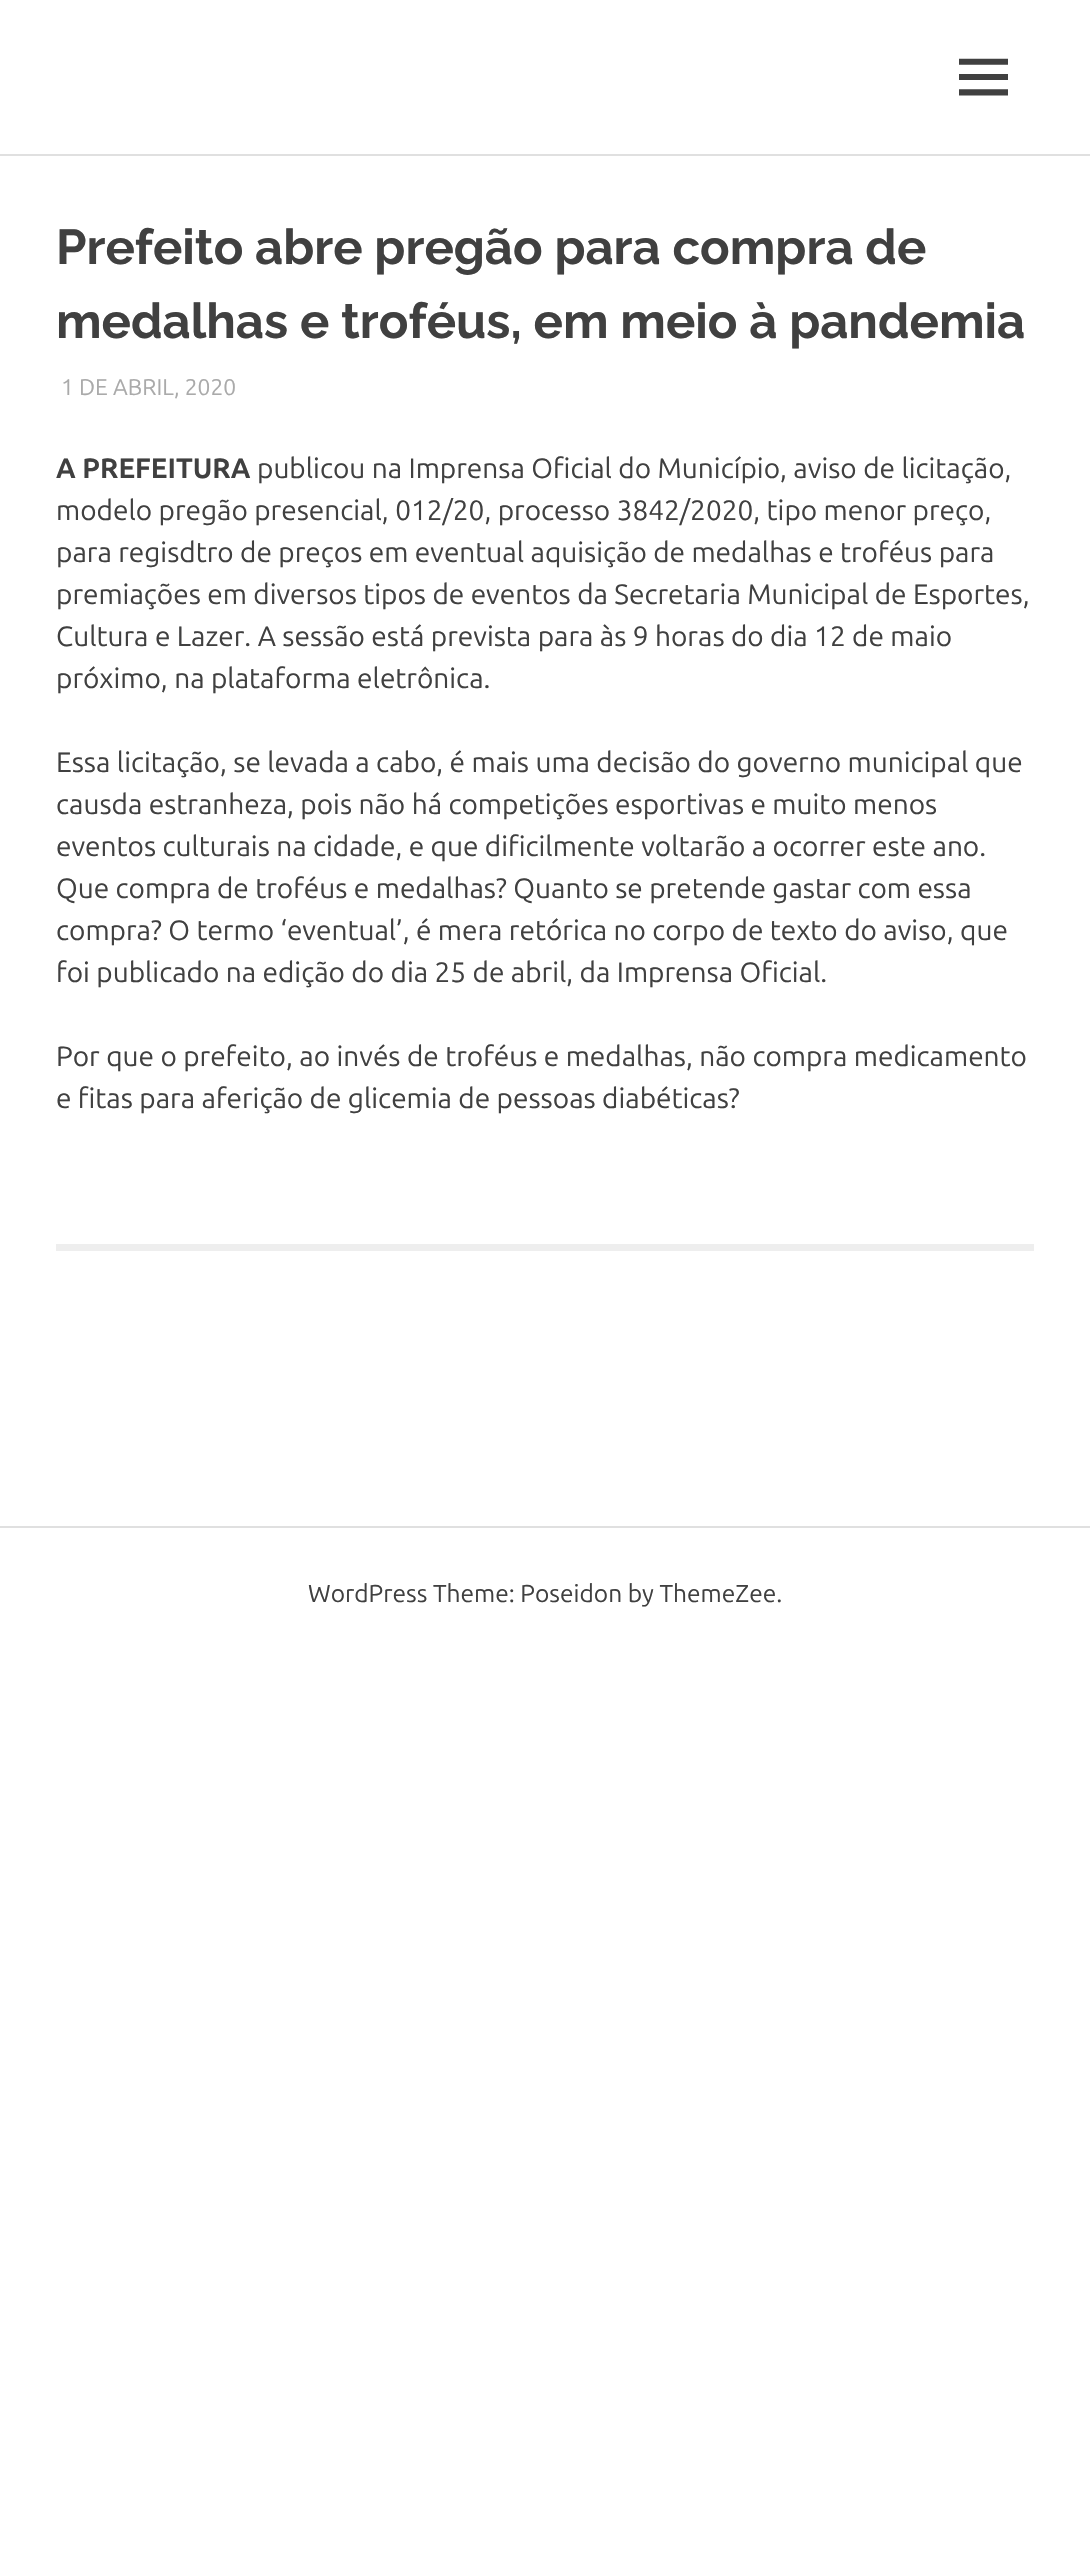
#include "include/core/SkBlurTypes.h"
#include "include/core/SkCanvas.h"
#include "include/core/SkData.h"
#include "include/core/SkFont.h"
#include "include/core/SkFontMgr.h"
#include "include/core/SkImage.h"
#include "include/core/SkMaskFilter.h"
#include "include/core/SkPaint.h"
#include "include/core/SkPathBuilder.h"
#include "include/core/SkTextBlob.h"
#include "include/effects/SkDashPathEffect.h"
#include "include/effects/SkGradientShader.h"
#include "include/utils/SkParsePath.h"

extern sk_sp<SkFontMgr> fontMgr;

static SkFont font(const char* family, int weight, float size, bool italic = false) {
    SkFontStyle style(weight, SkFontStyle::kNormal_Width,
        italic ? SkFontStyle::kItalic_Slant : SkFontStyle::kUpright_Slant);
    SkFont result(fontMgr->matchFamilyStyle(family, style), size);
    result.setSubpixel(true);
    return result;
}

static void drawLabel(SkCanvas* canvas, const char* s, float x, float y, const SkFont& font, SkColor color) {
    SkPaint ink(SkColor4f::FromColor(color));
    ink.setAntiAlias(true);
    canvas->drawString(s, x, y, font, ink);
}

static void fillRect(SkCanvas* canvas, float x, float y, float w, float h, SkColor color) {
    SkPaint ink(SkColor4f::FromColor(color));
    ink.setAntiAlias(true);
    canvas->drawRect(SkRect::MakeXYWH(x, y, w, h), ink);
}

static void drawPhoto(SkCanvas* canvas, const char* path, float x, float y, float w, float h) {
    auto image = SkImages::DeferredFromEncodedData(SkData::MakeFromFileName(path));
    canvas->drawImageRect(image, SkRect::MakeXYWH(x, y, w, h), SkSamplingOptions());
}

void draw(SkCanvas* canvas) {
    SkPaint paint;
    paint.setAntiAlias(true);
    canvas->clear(0xFFFFFFFF);
    fillRect(canvas, 0, 154, 1090, 2, 0xFFE0E0E0);
    drawPhoto(canvas, "assets/img1.png", 959, 58, 49, 38);
    SkFont font1 = font("Raleway", 700, 49);
    drawLabel(canvas, "Prefeito abre pregão para compra de", 56, 264, font1, 0xFF404040);
    drawLabel(canvas, "medalhas e troféus, em meio à pandemia", 56, 338, font1, 0xFF404040);
    SkFont font2 = font("Ubuntu", 400, 22.75f);
    drawLabel(canvas, "1 DE ABRIL, 2020", 61, 395, font2, 0xFFAAAAAA);
    SkFont font3 = font("Ubuntu", 700, 28);
    drawLabel(canvas, "A PREFEITURA", 56, 478, font3, 0xFF404040);
    SkFont font4 = font("Ubuntu", 400, 28);
    drawLabel(canvas, "publicou na Imprensa Oficial do Município, aviso de licitação,", 257, 478, font4, 0xFF404040);
    drawLabel(canvas, "modelo pregão presencial, 012/20, processo 3842/2020, tipo menor preço,", 56, 520, font4, 0xFF404040);
    drawLabel(canvas, "para regisdtro de preços em eventual aquisição de medalhas e troféus para", 56, 562, font4, 0xFF404040);
    drawLabel(canvas, "premiações em diversos tipos de eventos da Secretaria Municipal de Esportes,", 56, 604, font4, 0xFF404040);
    drawLabel(canvas, "Cultura e Lazer. A sessão está prevista para às 9 horas do dia 12 de maio", 56, 646, font4, 0xFF404040);
    drawLabel(canvas, "próximo, na plataforma eletrônica.", 56, 688, font4, 0xFF404040);
    drawLabel(canvas, "Essa licitação, se levada a cabo, é mais uma decisão do governo municipal que", 56, 772, font4, 0xFF404040);
    drawLabel(canvas, "causda estranheza, pois não há competições esportivas e muito menos", 56, 814, font4, 0xFF404040);
    drawLabel(canvas, "eventos culturais na cidade, e que dificilmente voltarão a ocorrer este ano.", 56, 856, font4, 0xFF404040);
    drawLabel(canvas, "Que compra de troféus e medalhas? Quanto se pretende gastar com essa", 56, 898, font4, 0xFF404040);
    drawLabel(canvas, "compra? O termo ‘eventual’, é mera retórica no corpo de texto do aviso, que", 56, 940, font4, 0xFF404040);
    drawLabel(canvas, "foi publicado na edição do dia 25 de abril, da Imprensa Oficial.", 56, 982, font4, 0xFF404040);
    drawLabel(canvas, "Por que o prefeito, ao invés de troféus e medalhas, não compra medicamento", 56, 1066, font4, 0xFF404040);
    drawLabel(canvas, "e fitas para aferição de glicemia de pessoas diabéticas?", 56, 1108, font4, 0xFF404040);
    fillRect(canvas, 56, 1244, 978, 7, 0xFFEEEEEE);
    fillRect(canvas, 0, 1526, 1090, 2, 0xFFE0E0E0);
    SkFont font5 = font("Ubuntu", 400, 24.5f);
    drawLabel(canvas, "WordPress Theme: Poseidon by ThemeZee.", 308, 1602, font5, 0xFF404040);
}
